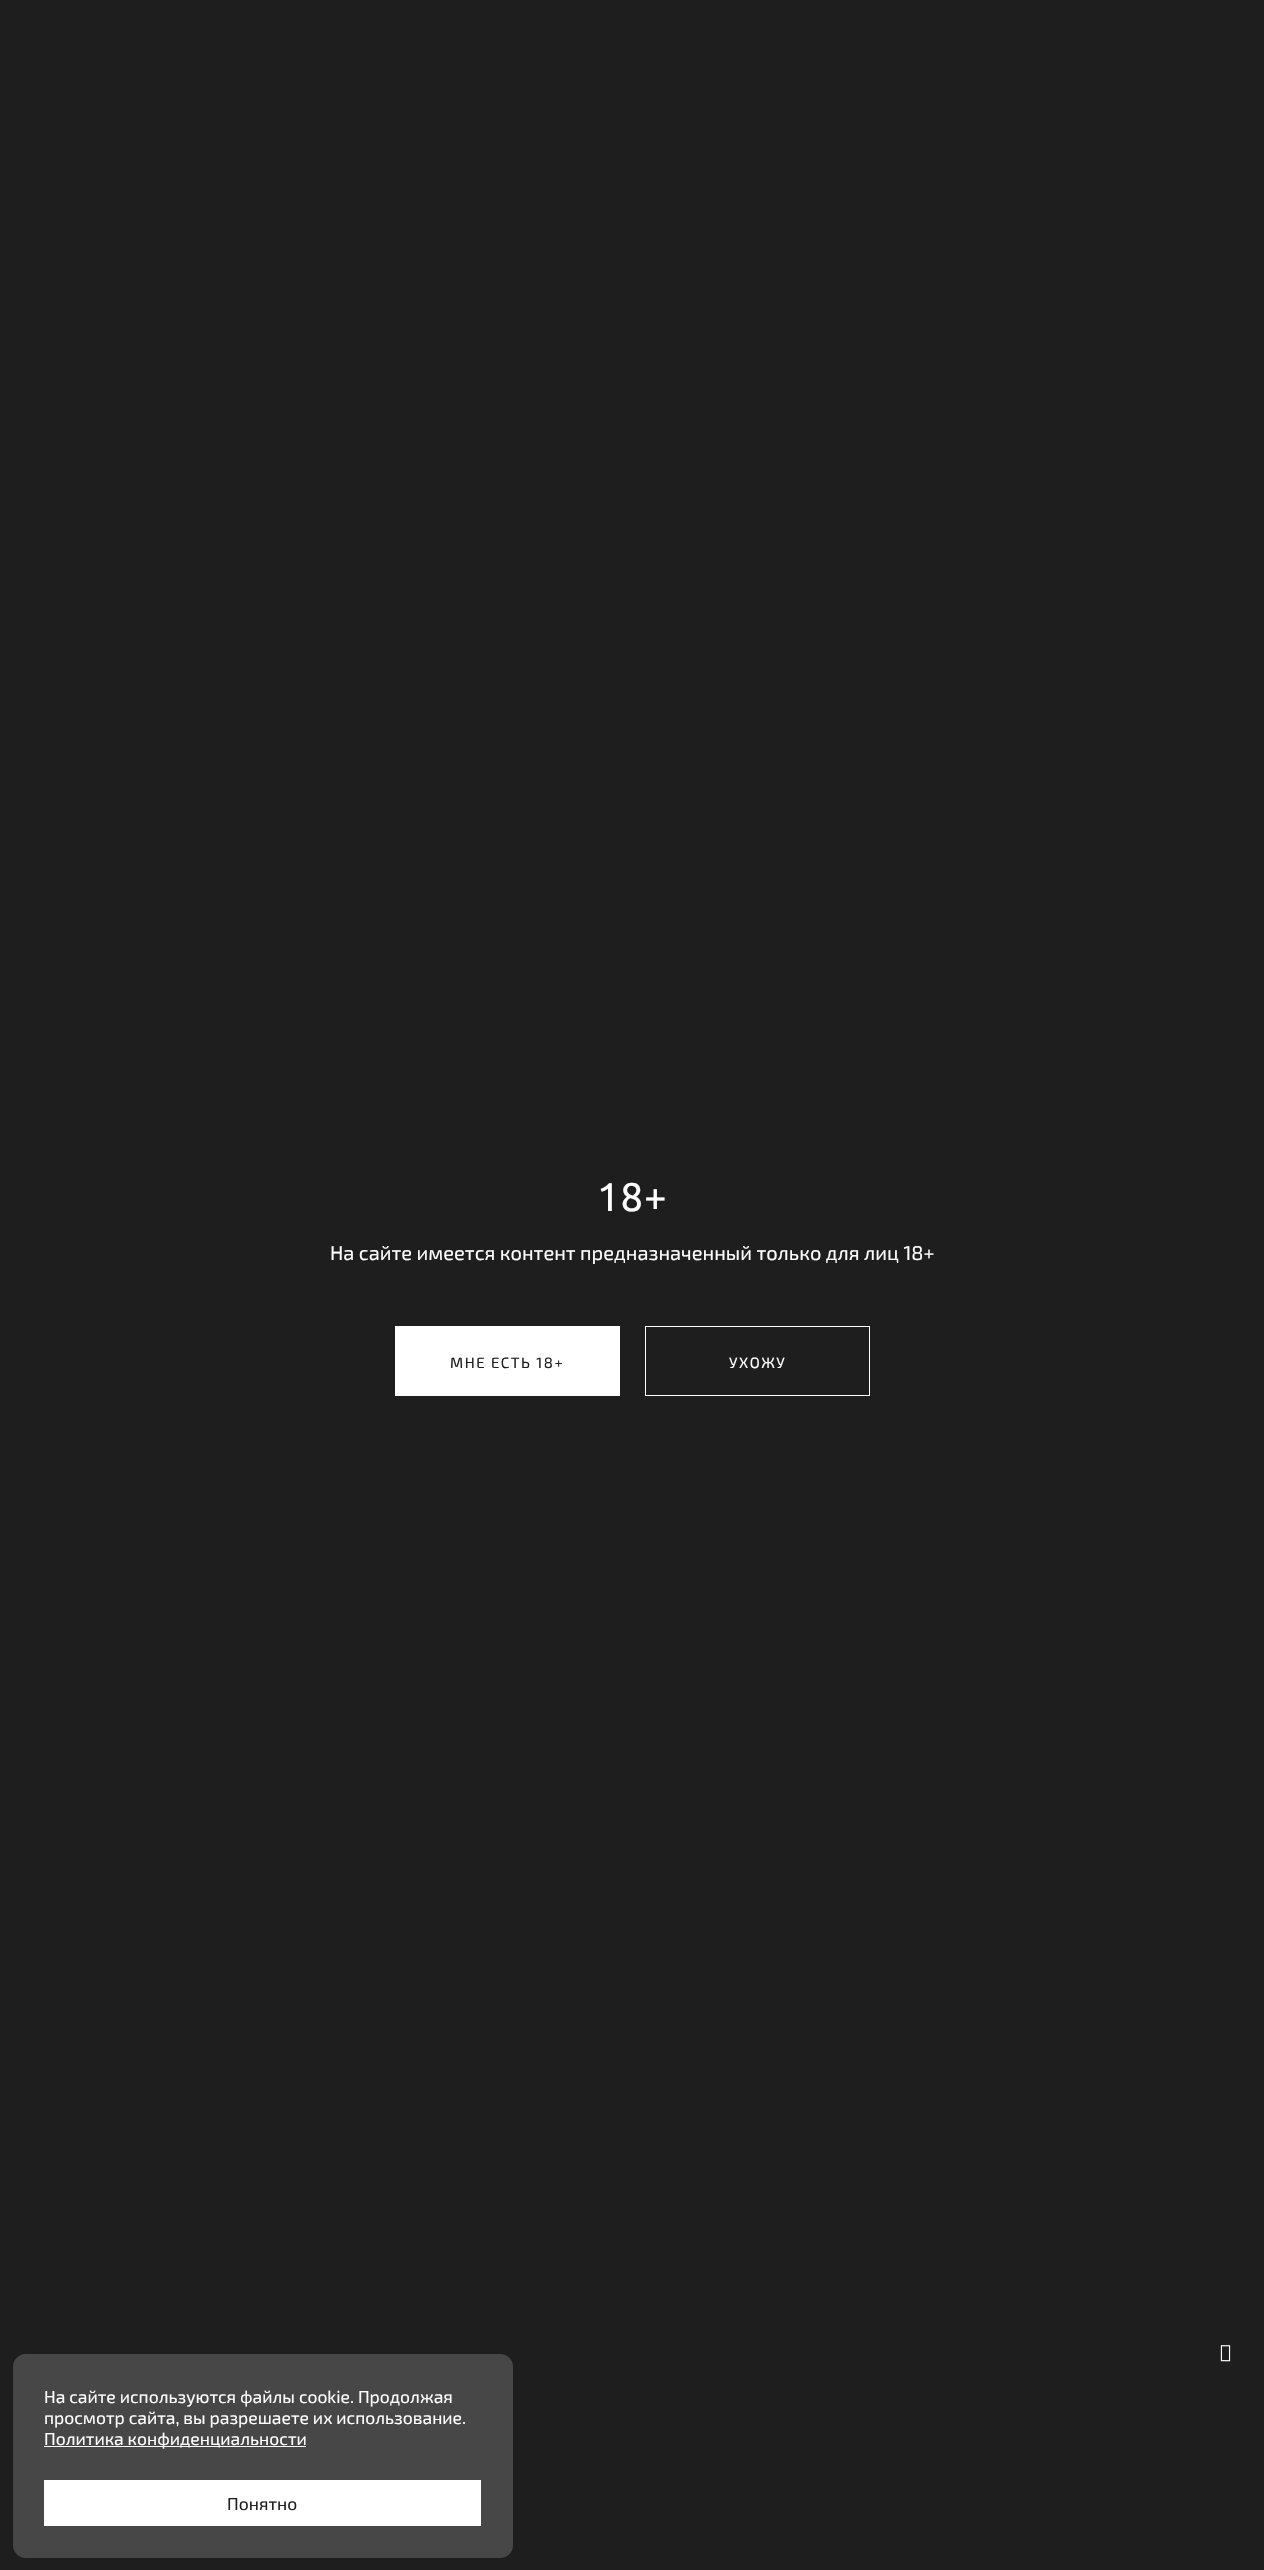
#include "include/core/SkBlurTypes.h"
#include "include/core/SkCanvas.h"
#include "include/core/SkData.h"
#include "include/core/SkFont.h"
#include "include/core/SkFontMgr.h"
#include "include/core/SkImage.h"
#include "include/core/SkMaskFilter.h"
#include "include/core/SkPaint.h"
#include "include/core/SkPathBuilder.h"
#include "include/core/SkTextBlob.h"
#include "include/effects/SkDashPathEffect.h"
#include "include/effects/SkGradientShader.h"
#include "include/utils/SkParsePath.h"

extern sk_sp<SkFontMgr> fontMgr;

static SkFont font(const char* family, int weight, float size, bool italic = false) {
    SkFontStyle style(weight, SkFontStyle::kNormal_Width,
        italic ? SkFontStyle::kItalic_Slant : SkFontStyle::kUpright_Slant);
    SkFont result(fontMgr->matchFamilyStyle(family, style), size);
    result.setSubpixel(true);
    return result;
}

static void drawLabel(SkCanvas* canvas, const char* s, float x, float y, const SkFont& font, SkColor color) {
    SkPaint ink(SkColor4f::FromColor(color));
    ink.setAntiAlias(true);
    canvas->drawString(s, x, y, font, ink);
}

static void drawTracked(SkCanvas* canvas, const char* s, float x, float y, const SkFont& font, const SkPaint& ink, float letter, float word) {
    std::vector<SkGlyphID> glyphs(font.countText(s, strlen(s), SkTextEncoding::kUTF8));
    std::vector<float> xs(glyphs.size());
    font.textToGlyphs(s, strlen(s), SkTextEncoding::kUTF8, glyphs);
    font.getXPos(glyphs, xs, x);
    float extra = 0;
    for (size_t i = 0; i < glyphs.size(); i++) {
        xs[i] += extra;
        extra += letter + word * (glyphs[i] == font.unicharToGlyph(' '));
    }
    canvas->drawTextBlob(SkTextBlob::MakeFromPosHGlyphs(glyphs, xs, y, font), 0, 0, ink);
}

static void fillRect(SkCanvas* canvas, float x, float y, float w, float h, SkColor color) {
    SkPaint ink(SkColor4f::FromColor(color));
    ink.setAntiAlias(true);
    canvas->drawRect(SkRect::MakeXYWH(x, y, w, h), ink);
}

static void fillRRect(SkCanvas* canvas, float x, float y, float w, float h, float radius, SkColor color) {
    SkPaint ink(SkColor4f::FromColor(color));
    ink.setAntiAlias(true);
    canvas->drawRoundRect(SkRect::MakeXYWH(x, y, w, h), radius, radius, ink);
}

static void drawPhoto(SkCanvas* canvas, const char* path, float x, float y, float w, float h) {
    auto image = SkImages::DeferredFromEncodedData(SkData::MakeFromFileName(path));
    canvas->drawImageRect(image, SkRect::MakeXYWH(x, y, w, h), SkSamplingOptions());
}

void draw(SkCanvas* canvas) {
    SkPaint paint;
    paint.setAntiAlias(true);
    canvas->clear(0xFF1E1E1E);
    SkFont font1 = font("Ubuntu", 400, 40);
    paint.setColor(0xFFFFFFFF);
    drawTracked(canvas, "18+", 597, 1211, font1, paint, 1, 0);
    SkFont font2 = font("Exo 2", 400, 20);
    drawLabel(canvas, "На сайте имеется контент предназначенный только для лиц 18+", 330, 1260, font2, 0xFFFFFFFF);
    fillRect(canvas, 395, 1326, 225, 70, 0xFFFFFFFF);
    SkFont font3 = font("Exo 2", 400, 15);
    paint.setColor(0xFF1E1E1E);
    drawTracked(canvas, "МНЕ ЕСТЬ 18+", 450, 1368, font3, paint, 1.5f, 0);
    paint.setStroke(true);
    paint.setStrokeWidth(1);
    paint.setColor(0xFFFFFFFF);
    canvas->drawRect(SkRect::MakeXYWH(645.5f, 1326.5f, 224, 69), paint);
    paint.setStroke(false);
    drawTracked(canvas, "УХОЖУ", 729, 1368, font3, paint, 1.5f, 0);
    drawPhoto(canvas, "assets/img1.png", 1220, 2345, 11, 17);
    fillRRect(canvas, 13, 2354, 500, 204, 13, 0xFF474747);
    SkFont font4 = font("Exo 2", 400, 17.5f);
    drawLabel(canvas, "На сайте используются файлы cookie. Продолжая", 44, 2403, font4, 0xFFFFFFFF);
    drawLabel(canvas, "просмотр сайта, вы разрешаете их использование.", 44, 2424, font4, 0xFFFFFFFF);
    fillRect(canvas, 44, 2446, 262, 1, 0xFFFFFFFF);
    drawLabel(canvas, "Политика конфиденциальности", 44, 2445, font4, 0xFFFFFFFF);
    fillRect(canvas, 44, 2480, 437, 46, 0xFFFFFFFF);
    drawLabel(canvas, "Понятно", 227, 2510, font4, 0xFF1E1E1E);
}
